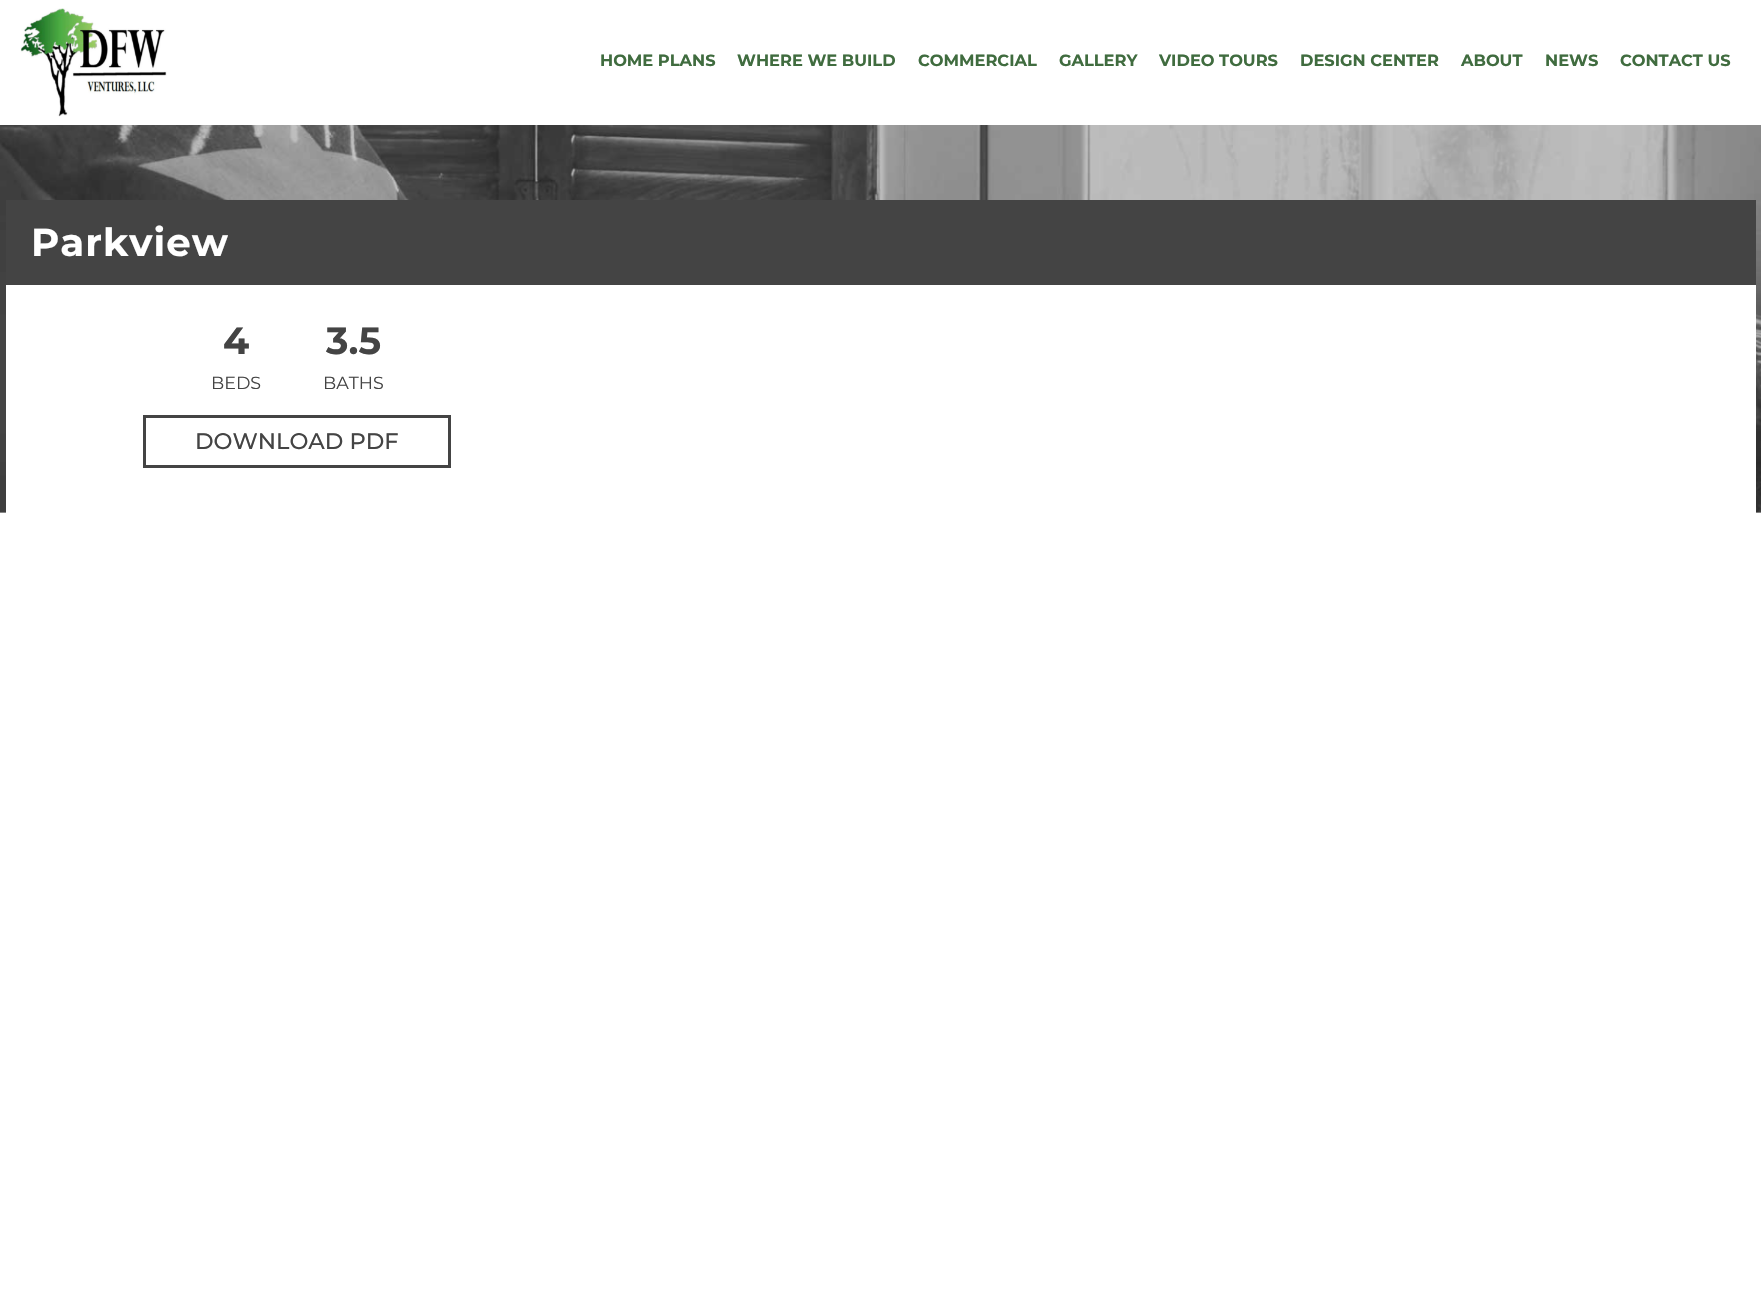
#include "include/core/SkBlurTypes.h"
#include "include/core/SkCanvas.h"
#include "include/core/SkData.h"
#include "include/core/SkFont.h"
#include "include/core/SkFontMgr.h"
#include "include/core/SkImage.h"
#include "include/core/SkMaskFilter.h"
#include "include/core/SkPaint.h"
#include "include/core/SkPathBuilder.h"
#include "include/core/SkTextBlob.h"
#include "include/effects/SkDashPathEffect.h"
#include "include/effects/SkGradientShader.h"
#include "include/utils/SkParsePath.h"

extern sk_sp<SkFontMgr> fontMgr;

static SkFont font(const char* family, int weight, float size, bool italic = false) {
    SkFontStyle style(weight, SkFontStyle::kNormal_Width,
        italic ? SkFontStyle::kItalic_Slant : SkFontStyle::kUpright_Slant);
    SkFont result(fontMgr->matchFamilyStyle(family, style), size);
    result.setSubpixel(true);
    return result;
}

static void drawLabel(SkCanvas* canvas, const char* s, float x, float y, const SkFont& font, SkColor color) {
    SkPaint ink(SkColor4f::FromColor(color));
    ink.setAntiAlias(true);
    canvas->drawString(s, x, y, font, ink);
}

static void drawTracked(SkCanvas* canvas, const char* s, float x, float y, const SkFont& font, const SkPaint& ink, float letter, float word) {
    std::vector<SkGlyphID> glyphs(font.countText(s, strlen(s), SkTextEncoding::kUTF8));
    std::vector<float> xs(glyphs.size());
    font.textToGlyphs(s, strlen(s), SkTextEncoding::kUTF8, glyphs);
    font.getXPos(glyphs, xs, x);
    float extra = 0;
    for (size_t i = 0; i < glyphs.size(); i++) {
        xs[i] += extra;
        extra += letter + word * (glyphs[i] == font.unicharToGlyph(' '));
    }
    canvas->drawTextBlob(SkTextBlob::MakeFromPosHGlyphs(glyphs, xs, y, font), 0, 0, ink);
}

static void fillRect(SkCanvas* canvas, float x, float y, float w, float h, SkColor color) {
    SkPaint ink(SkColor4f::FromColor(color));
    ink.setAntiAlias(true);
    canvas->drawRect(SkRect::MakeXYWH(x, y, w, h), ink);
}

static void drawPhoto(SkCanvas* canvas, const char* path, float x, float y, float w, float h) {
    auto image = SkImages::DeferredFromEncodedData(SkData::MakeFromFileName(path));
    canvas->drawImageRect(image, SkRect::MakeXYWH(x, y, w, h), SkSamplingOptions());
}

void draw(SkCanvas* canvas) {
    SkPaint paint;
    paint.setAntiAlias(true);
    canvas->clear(0xFFFFFFFF);
    drawPhoto(canvas, "assets/img1.png", 20, 8, 147, 109);
    SkFont font1 = font("Montserrat", 700, 16.25f);
    drawLabel(canvas, "HOME PLANS", 600, 66, font1, 0xFF406C3F);
    drawLabel(canvas, "WHERE WE BUILD", 737, 66, font1, 0xFF406C3F);
    drawLabel(canvas, "COMMERCIAL", 918, 66, font1, 0xFF406C3F);
    drawLabel(canvas, "GALLERY", 1059, 66, font1, 0xFF406C3F);
    drawLabel(canvas, "VIDEO TOURS", 1159, 66, font1, 0xFF406C3F);
    drawLabel(canvas, "DESIGN CENTER", 1300, 66, font1, 0xFF406C3F);
    drawLabel(canvas, "ABOUT", 1461, 66, font1, 0xFF406C3F);
    drawLabel(canvas, "NEWS", 1545, 66, font1, 0xFF406C3F);
    drawLabel(canvas, "CONTACT US", 1620, 66, font1, 0xFF406C3F);
    fillRect(canvas, 0, 512, 1761, 1, 0xFFCDCDCD);
    drawPhoto(canvas, "assets/img2.png", 0, 125, 1761, 388);
    fillRect(canvas, 6, 285, 1750, 228, 0xFFFFFFFF);
    fillRect(canvas, 6, 200, 1750, 85, 0xFF444444);
    SkFont font2 = font("Montserrat", 700, 38.75f);
    paint.setColor(0xFFFFFFFF);
    drawTracked(canvas, "Parkview", 31, 256, font2, paint, 1, 0);
    SkFont font3 = font("Montserrat", 700, 38);
    drawLabel(canvas, "4", 223, 354, font3, 0xFF444444);
    SkFont font4 = font("Montserrat", 400, 17.5f);
    drawLabel(canvas, "BEDS", 211, 389, font4, 0xFF444444);
    drawLabel(canvas, "3.5", 326, 354, font3, 0xFF444444);
    drawLabel(canvas, "BATHS", 323, 389, font4, 0xFF444444);
    paint.setStroke(true);
    paint.setStrokeWidth(3);
    paint.setColor(0xFF444444);
    canvas->drawRect(SkRect::MakeXYWH(144.5f, 416.5f, 305, 50), paint);
    SkFont font5 = font("Montserrat", 500, 22.5f);
    drawLabel(canvas, "DOWNLOAD PDF", 195, 449, font5, 0xFF444444);
}
